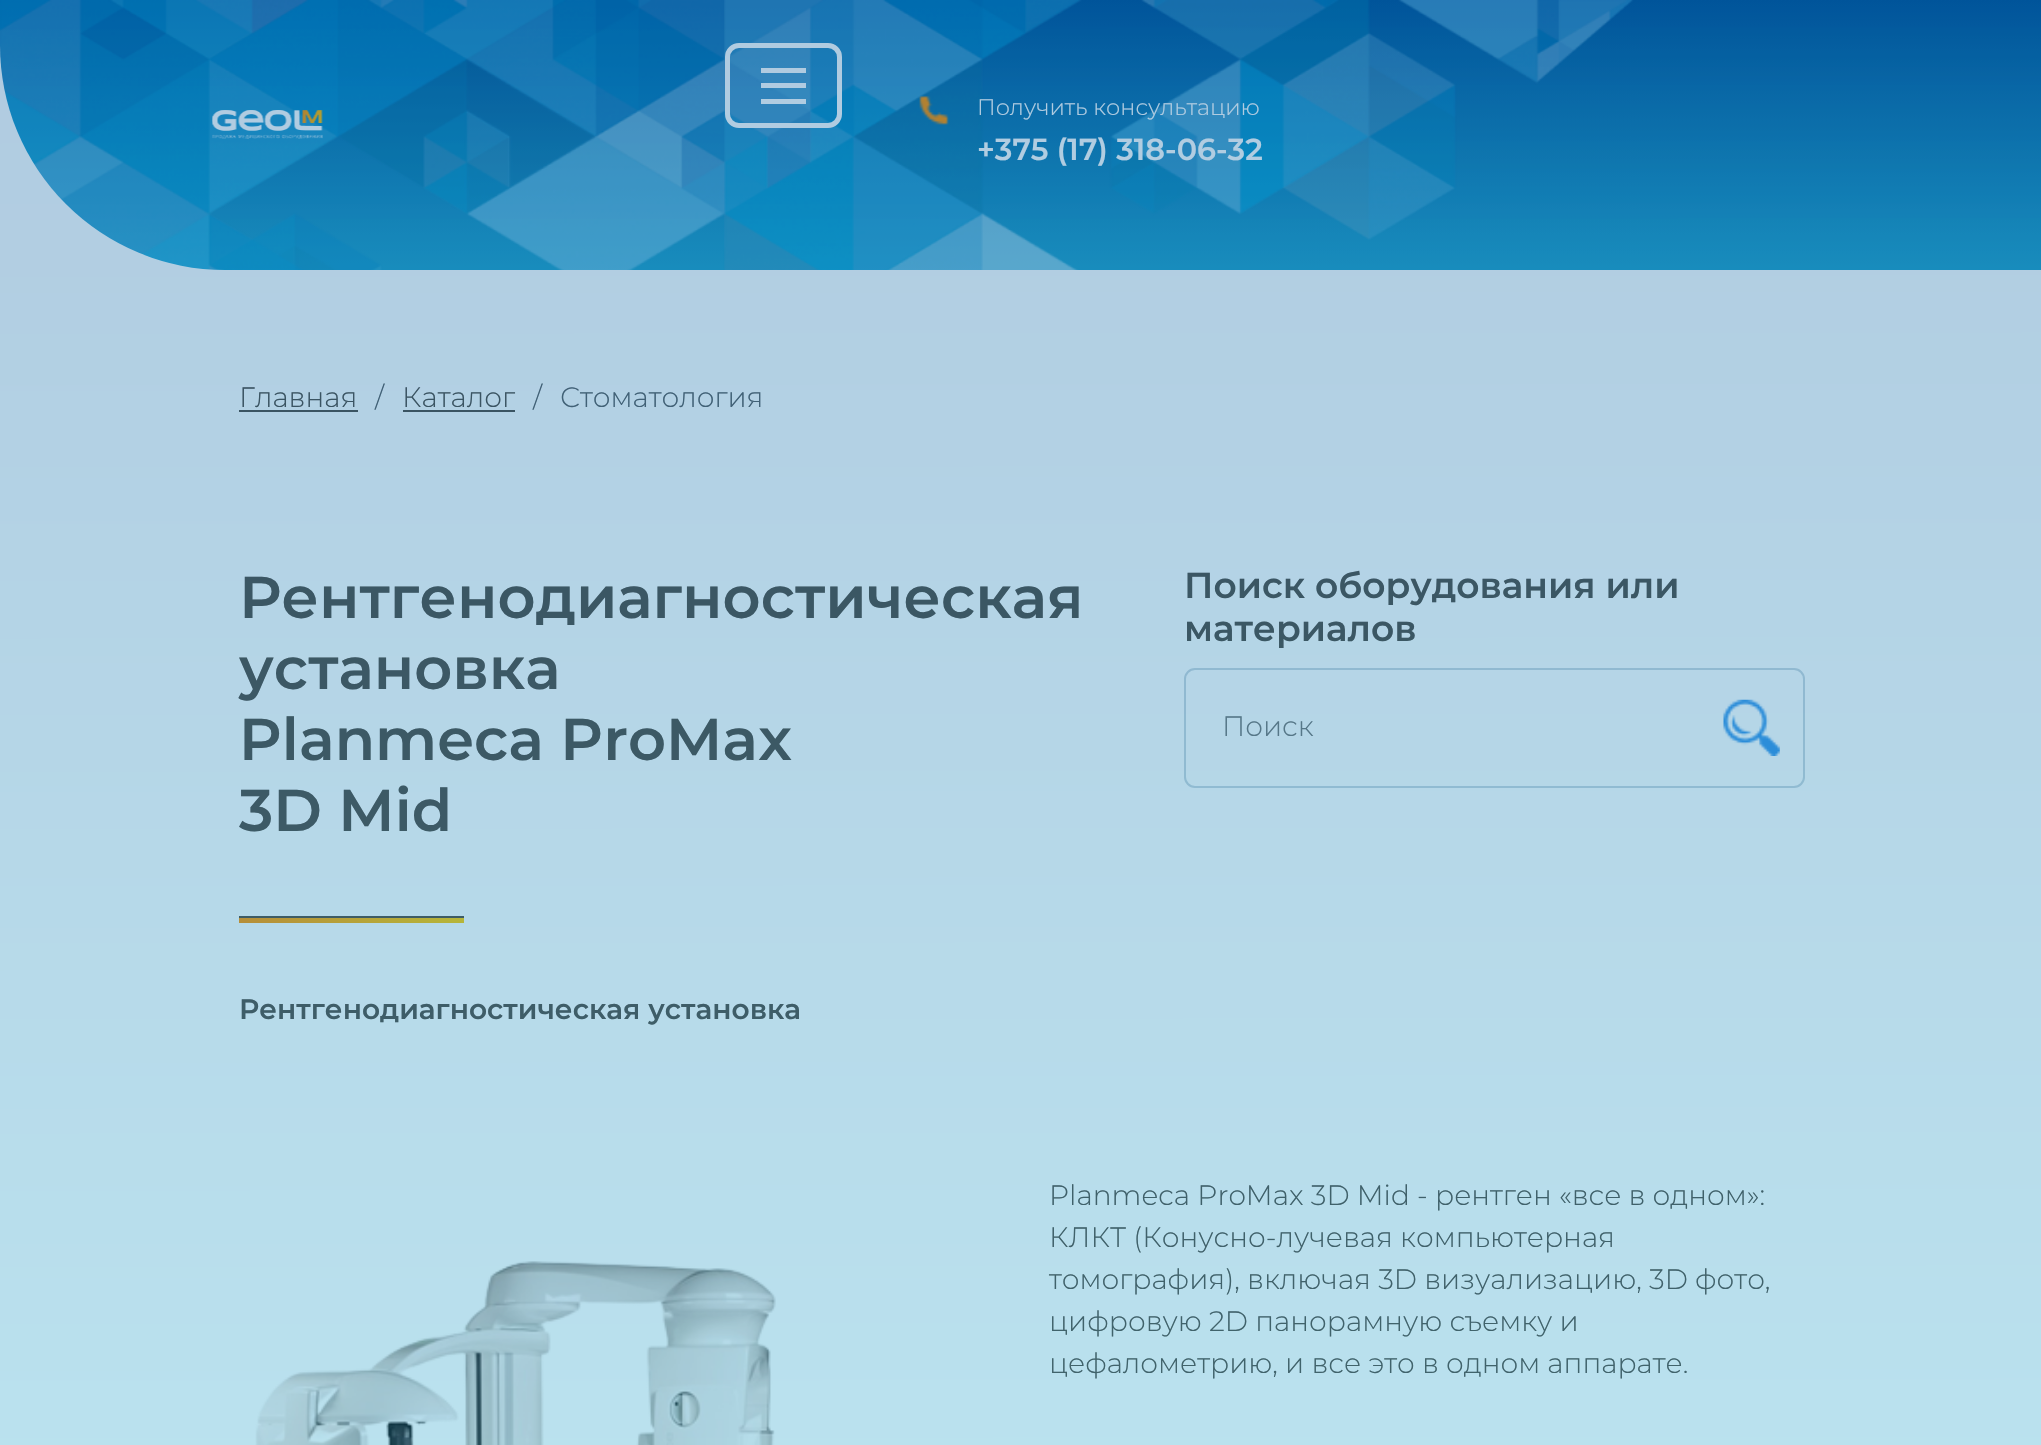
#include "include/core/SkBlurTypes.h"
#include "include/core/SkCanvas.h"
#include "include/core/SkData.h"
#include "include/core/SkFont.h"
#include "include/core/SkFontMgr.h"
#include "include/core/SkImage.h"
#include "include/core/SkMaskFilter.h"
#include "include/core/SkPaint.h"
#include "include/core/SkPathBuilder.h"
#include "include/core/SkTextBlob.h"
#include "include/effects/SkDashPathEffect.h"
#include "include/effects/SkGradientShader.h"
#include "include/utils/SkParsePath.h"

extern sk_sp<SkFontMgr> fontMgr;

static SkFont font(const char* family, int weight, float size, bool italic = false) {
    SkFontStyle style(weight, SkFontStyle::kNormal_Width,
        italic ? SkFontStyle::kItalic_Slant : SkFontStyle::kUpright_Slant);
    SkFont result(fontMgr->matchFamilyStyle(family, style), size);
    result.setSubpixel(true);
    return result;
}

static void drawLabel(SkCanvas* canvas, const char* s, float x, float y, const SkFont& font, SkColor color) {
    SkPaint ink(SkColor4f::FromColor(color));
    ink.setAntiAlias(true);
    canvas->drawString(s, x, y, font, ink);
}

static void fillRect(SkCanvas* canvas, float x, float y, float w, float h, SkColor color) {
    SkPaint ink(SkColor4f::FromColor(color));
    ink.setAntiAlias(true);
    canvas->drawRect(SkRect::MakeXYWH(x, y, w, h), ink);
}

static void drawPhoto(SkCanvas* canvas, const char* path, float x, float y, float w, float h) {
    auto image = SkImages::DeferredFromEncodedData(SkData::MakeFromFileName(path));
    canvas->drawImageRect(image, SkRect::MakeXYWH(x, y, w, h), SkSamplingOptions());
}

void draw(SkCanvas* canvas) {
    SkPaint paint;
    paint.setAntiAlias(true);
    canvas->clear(0xFFFFFFFF);
    drawPhoto(canvas, "assets/img1.png", 0, 0, 2041, 270);
    drawPhoto(canvas, "assets/img2.png", 212, 110, 111, 29);
    paint.setStroke(true);
    paint.setStrokeWidth(5);
    paint.setColor(0xFFFFFFFF);
    canvas->drawRoundRect(SkRect::MakeXYWH(727.5f, 45.5f, 112, 80), 11.5f, 11.5f, paint);
    fillRect(canvas, 761, 68, 45, 5, 0xFFFFFFFF);
    fillRect(canvas, 761, 83, 45, 5, 0xFFFFFFFF);
    fillRect(canvas, 761, 99, 45, 5, 0xFFFFFFFF);
    drawPhoto(canvas, "assets/img3.png", 919, 96, 30, 29);
    SkFont font1 = font("Montserrat", 300, 22.5f);
    drawLabel(canvas, "Получить консультацию", 977, 115, font1, 0xFFFFFFFF);
    SkFont font2 = font("Montserrat", 600, 30.25f);
    drawLabel(canvas, "+375 (17) 318-06-32", 977, 160, font2, 0xFFFFFFFF);
    SkFont font3 = font("Montserrat", 300, 28.05f);
    drawLabel(canvas, "Главная", 239, 407, font3, 0xFF504942);
    fillRect(canvas, 239, 410, 119, 2, 0xFF504942);
    drawLabel(canvas, "/", 375, 407, font3, 0xFF595C5F);
    drawLabel(canvas, "Каталог", 402, 407, font3, 0xFF504942);
    fillRect(canvas, 403, 410, 112, 2, 0xFF504942);
    drawLabel(canvas, "/", 533, 407, font3, 0xFF595C5F);
    drawLabel(canvas, "Стоматология", 560, 407, font3, 0xFF595C5F);
    SkFont font4 = font("Montserrat", 600, 59);
    drawLabel(canvas, "Рентгенодиагностическая", 239, 618, font4, 0xFF504942);
    drawLabel(canvas, "установка", 239, 689, font4, 0xFF504942);
    drawLabel(canvas, "Planmeca ProMax", 239, 760, font4, 0xFF504942);
    drawLabel(canvas, "3D Mid", 239, 831, font4, 0xFF504942);
    paint.setStroke(false);
    {
        const SkColor colors[] = {0xFFFF9200, 0xFFFFCC00};
        const float stops[] = {0, 1};
        const SkPoint ends[] = {{294, 978}, {408, 863}};
        paint.setShader(SkGradientShader::MakeLinear(ends, colors, stops, 2, SkTileMode::kClamp));
        paint.setAlpha(255);
    }
    canvas->drawRect(SkRect::MakeXYWH(239, 918, 225, 5), paint);
    fillRect(canvas, 239, 916, 225, 2, 0xFF504942);
    SkFont font5 = font("Montserrat", 600, 28.05f);
    drawLabel(canvas, "Рентгенодиагностическая установка", 239, 1019, font5, 0xFF504942);
    SkFont font6 = font("Montserrat", 600, 36);
    drawLabel(canvas, "Поиск оборудования или", 1184, 598, font6, 0xFF504942);
    drawLabel(canvas, "материалов", 1184, 641, font6, 0xFF504942);
    paint.setStroke(true);
    paint.setStrokeWidth(2);
    paint.setShader(nullptr);
    paint.setColor(0xFFC9D6DF);
    canvas->drawRoundRect(SkRect::MakeXYWH(1185, 669, 619, 118), 10, 10, paint);
    drawLabel(canvas, "Поиск", 1222, 736, font3, 0xFF757575);
    drawPhoto(canvas, "assets/img4.png", 1723, 699, 57, 57);
    drawPhoto(canvas, "assets/img5.png", 255, 1261, 521, 184);
    drawLabel(canvas, "Planmeca ProMax 3D Mid - рентген «все в одном»:", 1049, 1205, font3, 0xFF504942);
    drawLabel(canvas, "КЛКТ (Конусно-лучевая компьютерная", 1049, 1247, font3, 0xFF504942);
    drawLabel(canvas, "томография), включая 3D визуализацию, 3D фото,", 1049, 1289, font3, 0xFF504942);
    drawLabel(canvas, "цифровую 2D панорамную съемку и", 1049, 1331, font3, 0xFF504942);
    drawLabel(canvas, "цефалометрию, и все это в одном аппарате.", 1049, 1373, font3, 0xFF504942);
    paint.setStroke(false);
    {
        const SkColor colors[] = {0x4F00549A, 0x4F20A0C9};
        const float stops[] = {0, 1};
        const SkPoint ends[] = {{1021, 0}, {1022, 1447}};
        paint.setShader(SkGradientShader::MakeLinear(ends, colors, stops, 2, SkTileMode::kClamp));
        paint.setAlpha(255);
    }
    canvas->drawRect(SkRect::MakeXYWH(0, 0, 2041, 1445), paint);
}
